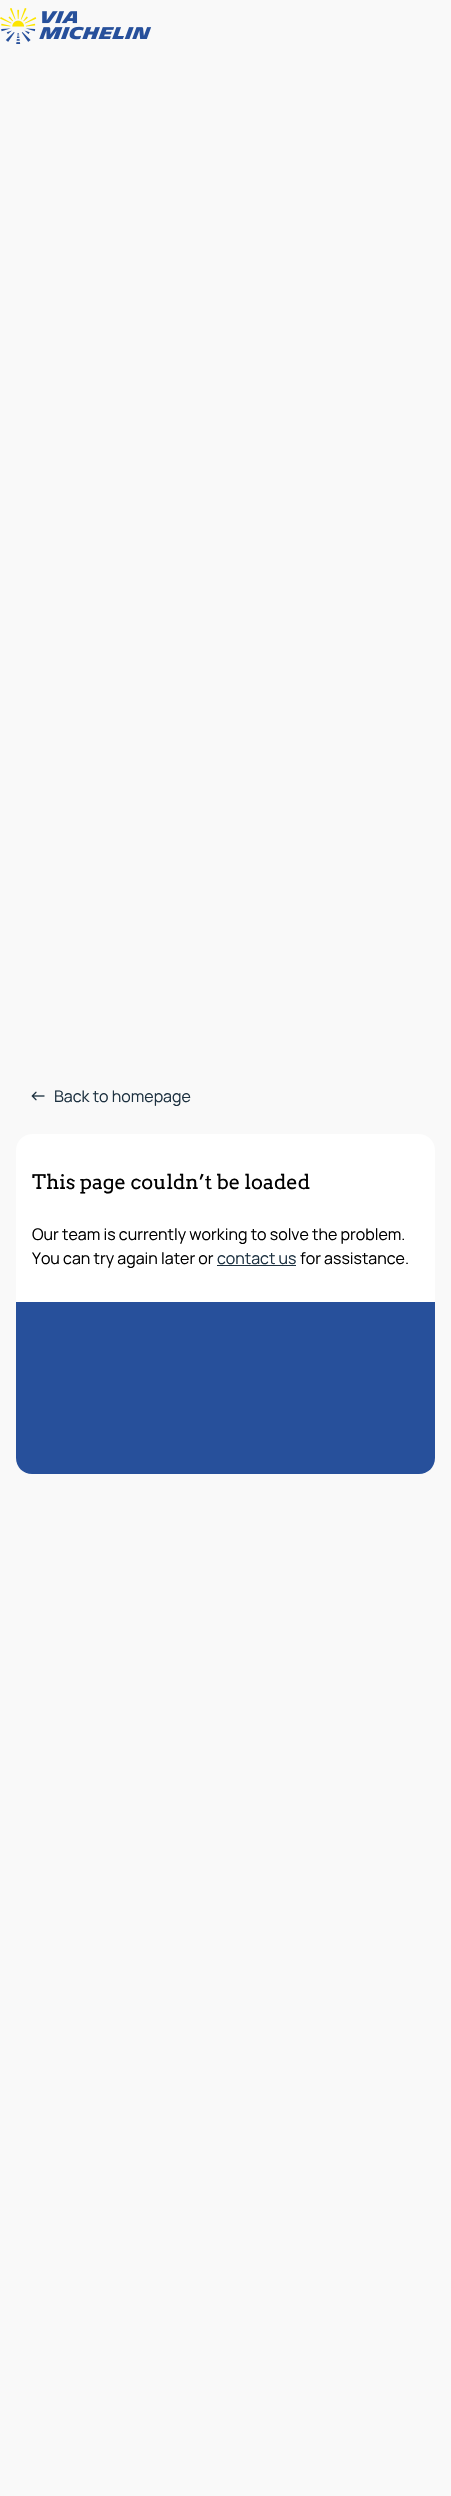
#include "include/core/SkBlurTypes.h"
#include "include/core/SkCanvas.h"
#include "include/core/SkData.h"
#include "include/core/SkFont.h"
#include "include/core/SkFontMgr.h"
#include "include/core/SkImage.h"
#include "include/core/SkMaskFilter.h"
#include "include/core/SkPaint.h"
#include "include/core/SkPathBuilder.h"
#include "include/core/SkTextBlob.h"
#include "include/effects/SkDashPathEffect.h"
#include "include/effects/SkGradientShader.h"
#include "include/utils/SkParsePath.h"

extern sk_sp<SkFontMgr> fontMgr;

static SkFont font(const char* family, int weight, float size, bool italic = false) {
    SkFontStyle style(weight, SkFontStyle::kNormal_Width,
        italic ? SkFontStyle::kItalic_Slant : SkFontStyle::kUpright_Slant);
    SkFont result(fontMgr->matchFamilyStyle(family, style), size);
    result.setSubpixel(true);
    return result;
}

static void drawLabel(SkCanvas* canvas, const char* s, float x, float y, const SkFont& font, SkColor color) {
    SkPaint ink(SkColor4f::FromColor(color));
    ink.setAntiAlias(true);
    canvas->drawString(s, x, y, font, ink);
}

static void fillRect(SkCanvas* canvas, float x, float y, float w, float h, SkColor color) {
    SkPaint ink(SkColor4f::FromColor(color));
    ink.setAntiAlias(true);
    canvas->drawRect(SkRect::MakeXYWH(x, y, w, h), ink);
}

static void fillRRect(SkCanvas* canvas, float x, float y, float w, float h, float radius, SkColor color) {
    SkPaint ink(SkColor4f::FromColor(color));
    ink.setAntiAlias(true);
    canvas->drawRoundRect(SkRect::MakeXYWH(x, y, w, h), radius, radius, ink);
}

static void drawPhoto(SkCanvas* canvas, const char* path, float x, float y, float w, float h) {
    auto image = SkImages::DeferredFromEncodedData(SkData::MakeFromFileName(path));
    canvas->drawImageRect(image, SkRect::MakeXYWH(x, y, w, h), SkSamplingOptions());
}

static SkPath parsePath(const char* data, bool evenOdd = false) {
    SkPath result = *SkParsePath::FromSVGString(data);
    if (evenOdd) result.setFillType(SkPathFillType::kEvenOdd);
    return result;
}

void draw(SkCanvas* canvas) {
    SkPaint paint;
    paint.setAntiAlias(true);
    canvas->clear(0xFFF9F9F9);
    drawPhoto(canvas, "assets/img1.png", 0, 8, 152, 36);
    drawPhoto(canvas, "assets/img2.png", 31, 1091, 14, 10);
    SkFont font1 = font("Manrope", 200, 16);
    drawLabel(canvas, "Back to homepage", 54, 1102, font1, 0xFF1D3140);
    fillRRect(canvas, 16, 1134, 419, 340, 16, 0xFFFFFFFF);
    SkFont font2 = font("Arvo", 400, 20);
    drawLabel(canvas, "This page couldn’t be loaded", 32, 1189, font2, 0xFF000000);
    drawLabel(canvas, "Our team is currently working to solve the problem.", 32, 1240, font1, 0xFF000000);
    drawLabel(canvas, "You can try again later or", 32, 1264, font1, 0xFF000000);
    drawLabel(canvas, "contact us", 217, 1264, font1, 0xFF1D3140);
    fillRect(canvas, 217, 1265, 79, 1, 0xFF1D3140);
    drawLabel(canvas, "for assistance.", 300, 1264, font1, 0xFF000000);
    paint.setColor(0xFF27509B);
    canvas->drawPath(parsePath("M16 1302H435V1458C435 1467 428 1474 419 1474H32C23 1474 16 1467 16 1458Z"), paint);
}
